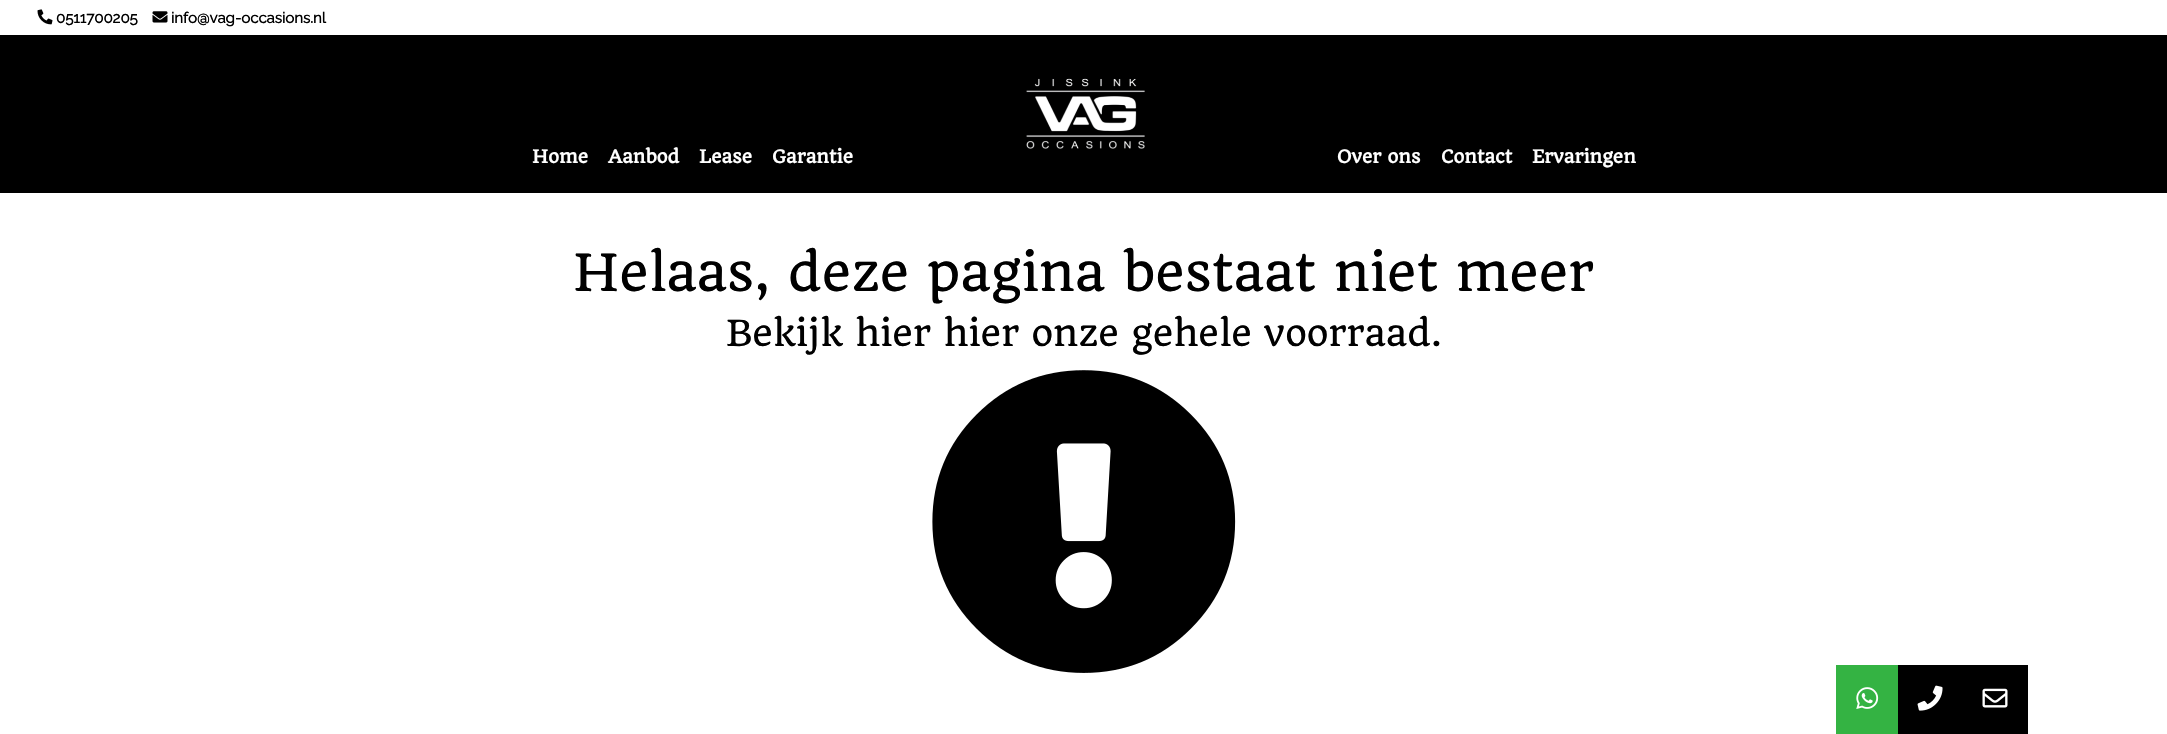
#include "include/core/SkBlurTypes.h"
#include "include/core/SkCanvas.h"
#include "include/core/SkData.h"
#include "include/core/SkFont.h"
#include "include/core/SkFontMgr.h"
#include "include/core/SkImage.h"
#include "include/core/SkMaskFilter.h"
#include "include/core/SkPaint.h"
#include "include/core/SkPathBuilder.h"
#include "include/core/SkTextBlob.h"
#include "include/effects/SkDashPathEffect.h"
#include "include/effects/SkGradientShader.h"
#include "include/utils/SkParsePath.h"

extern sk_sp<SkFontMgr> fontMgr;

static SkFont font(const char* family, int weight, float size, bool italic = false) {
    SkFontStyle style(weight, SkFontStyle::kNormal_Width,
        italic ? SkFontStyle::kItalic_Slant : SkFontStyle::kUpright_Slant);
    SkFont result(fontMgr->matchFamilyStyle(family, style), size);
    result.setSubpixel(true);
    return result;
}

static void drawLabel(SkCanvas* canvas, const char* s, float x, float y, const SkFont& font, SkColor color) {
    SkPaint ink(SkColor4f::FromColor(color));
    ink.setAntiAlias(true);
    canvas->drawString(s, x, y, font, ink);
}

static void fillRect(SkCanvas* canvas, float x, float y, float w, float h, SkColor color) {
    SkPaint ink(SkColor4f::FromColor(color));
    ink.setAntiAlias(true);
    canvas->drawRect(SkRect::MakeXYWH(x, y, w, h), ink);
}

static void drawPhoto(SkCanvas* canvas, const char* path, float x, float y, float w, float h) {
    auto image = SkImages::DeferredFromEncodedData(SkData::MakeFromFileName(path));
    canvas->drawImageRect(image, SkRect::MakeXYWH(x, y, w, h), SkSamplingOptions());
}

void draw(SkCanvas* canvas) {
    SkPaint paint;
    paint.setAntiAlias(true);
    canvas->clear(0xFFFFFFFF);
    drawPhoto(canvas, "assets/img1.png", 37, 9, 16, 16);
    SkFont font1 = font("Raleway", 700, 15);
    drawLabel(canvas, "0511700205", 56, 23, font1, 0xFF000000);
    drawPhoto(canvas, "assets/img2.png", 152, 11, 16, 12);
    drawLabel(canvas, "info@vag-occasions.nl", 171, 23, font1, 0xFF000000);
    fillRect(canvas, 0, 35, 2167, 158, 0xFF000000);
    drawPhoto(canvas, "assets/img3.png", 1026, 78, 119, 71);
    SkFont font2 = font("Quando", 700, 17.5f);
    drawLabel(canvas, "Home", 532, 163, font2, 0xFFFFFFFF);
    drawLabel(canvas, "Aanbod", 608, 163, font2, 0xFFFFFFFF);
    drawLabel(canvas, "Lease", 699, 163, font2, 0xFFFFFFFF);
    drawLabel(canvas, "Garantie", 772, 163, font2, 0xFFFFFFFF);
    drawLabel(canvas, "Over ons", 1337, 163, font2, 0xFFFFFFFF);
    drawLabel(canvas, "Contact", 1441, 163, font2, 0xFFFFFFFF);
    drawLabel(canvas, "Ervaringen", 1532, 163, font2, 0xFFFFFFFF);
    SkFont font3 = font("Quando", 400, 50);
    drawLabel(canvas, "Helaas, deze pagina bestaat niet meer", 573, 291, font3, 0xFF000000);
    SkFont font4 = font("Quando", 400, 35);
    drawLabel(canvas, "Bekijk hier hier onze gehele voorraad.", 726, 346, font4, 0xFF000000);
    drawPhoto(canvas, "assets/img4.png", 932, 370, 304, 303);
    fillRect(canvas, 1836, 665, 62, 69, 0xFF34B343);
    drawPhoto(canvas, "assets/img5.png", 1856, 687, 23, 22);
    fillRect(canvas, 1898, 665, 130, 69, 0xFF000000);
    drawPhoto(canvas, "assets/img6.png", 1917, 685, 26, 26);
    drawPhoto(canvas, "assets/img7.png", 1982, 688, 26, 20);
}
